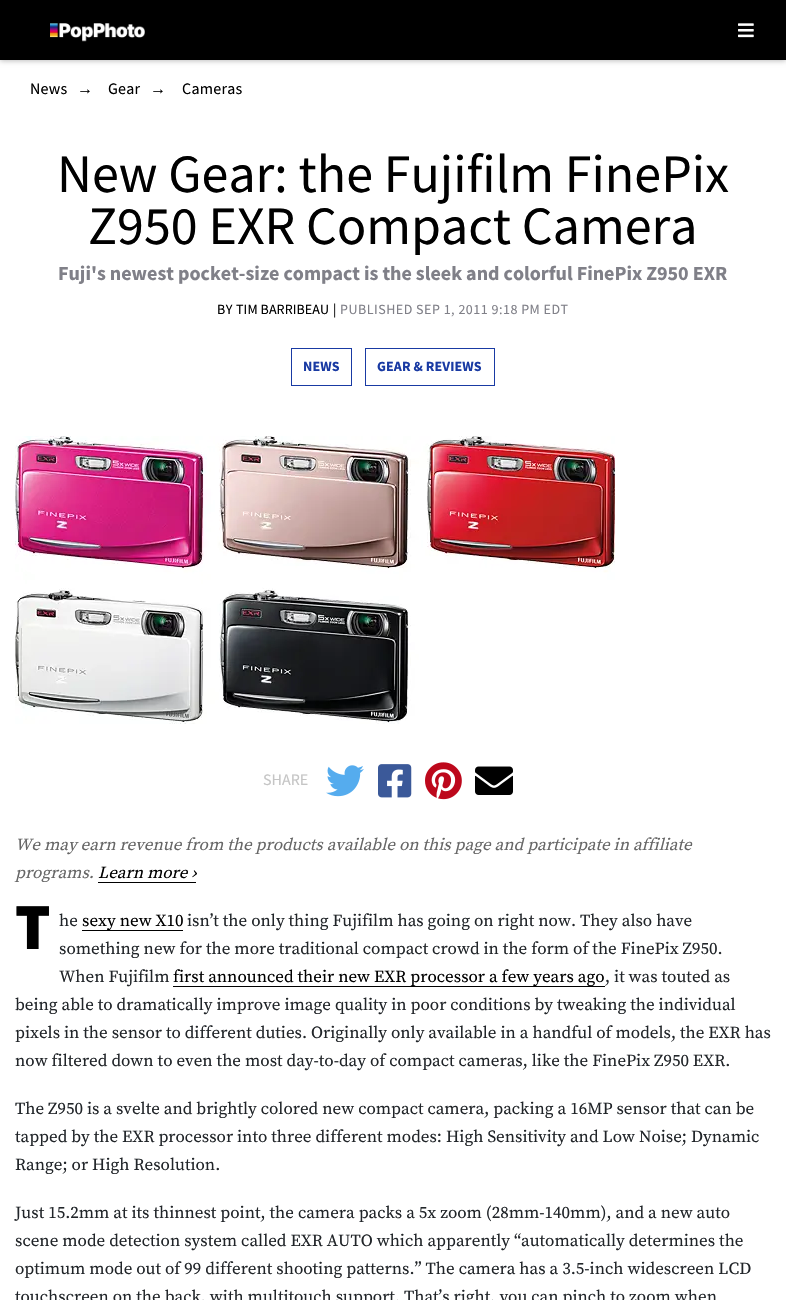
#include "include/core/SkBlurTypes.h"
#include "include/core/SkCanvas.h"
#include "include/core/SkData.h"
#include "include/core/SkFont.h"
#include "include/core/SkFontMgr.h"
#include "include/core/SkImage.h"
#include "include/core/SkMaskFilter.h"
#include "include/core/SkPaint.h"
#include "include/core/SkPathBuilder.h"
#include "include/core/SkTextBlob.h"
#include "include/effects/SkDashPathEffect.h"
#include "include/effects/SkGradientShader.h"
#include "include/utils/SkParsePath.h"

extern sk_sp<SkFontMgr> fontMgr;

static SkFont font(const char* family, int weight, float size, bool italic = false) {
    SkFontStyle style(weight, SkFontStyle::kNormal_Width,
        italic ? SkFontStyle::kItalic_Slant : SkFontStyle::kUpright_Slant);
    SkFont result(fontMgr->matchFamilyStyle(family, style), size);
    result.setSubpixel(true);
    return result;
}

static void drawLabel(SkCanvas* canvas, const char* s, float x, float y, const SkFont& font, SkColor color) {
    SkPaint ink(SkColor4f::FromColor(color));
    ink.setAntiAlias(true);
    canvas->drawString(s, x, y, font, ink);
}

static void drawTracked(SkCanvas* canvas, const char* s, float x, float y, const SkFont& font, const SkPaint& ink, float letter, float word) {
    std::vector<SkGlyphID> glyphs(font.countText(s, strlen(s), SkTextEncoding::kUTF8));
    std::vector<float> xs(glyphs.size());
    font.textToGlyphs(s, strlen(s), SkTextEncoding::kUTF8, glyphs);
    font.getXPos(glyphs, xs, x);
    float extra = 0;
    for (size_t i = 0; i < glyphs.size(); i++) {
        xs[i] += extra;
        extra += letter + word * (glyphs[i] == font.unicharToGlyph(' '));
    }
    canvas->drawTextBlob(SkTextBlob::MakeFromPosHGlyphs(glyphs, xs, y, font), 0, 0, ink);
}

static void fillRect(SkCanvas* canvas, float x, float y, float w, float h, SkColor color) {
    SkPaint ink(SkColor4f::FromColor(color));
    ink.setAntiAlias(true);
    canvas->drawRect(SkRect::MakeXYWH(x, y, w, h), ink);
}

static void drawPhoto(SkCanvas* canvas, const char* path, float x, float y, float w, float h) {
    auto image = SkImages::DeferredFromEncodedData(SkData::MakeFromFileName(path));
    canvas->drawImageRect(image, SkRect::MakeXYWH(x, y, w, h), SkSamplingOptions());
}

void draw(SkCanvas* canvas) {
    SkPaint paint;
    paint.setAntiAlias(true);
    canvas->clear(0xFFFFFFFF);
    paint.setColor(0x40000000);
    paint.setMaskFilter(SkMaskFilter::MakeBlur(kNormal_SkBlurStyle, 2.5f));
    canvas->drawRect(SkRect::MakeXYWH(0, 1, 786, 60), paint);
    paint.setMaskFilter(nullptr);
    fillRect(canvas, 0, 0, 786, 60, 0xFF000000);
    drawPhoto(canvas, "assets/img1.png", 50, 23, 95, 19);
    drawPhoto(canvas, "assets/img2.png", 738, 23, 16, 15);
    SkFont font1 = font("Source Sans Pro", 400, 16);
    paint.setColor(0xFF000000);
    drawTracked(canvas, "News", 30, 94, font1, paint, 0.25f, 0);
    SkFont font2 = font("Liberation Sans", 400, 16);
    drawLabel(canvas, "→", 77, 94, font2, 0xFF000000);
    drawTracked(canvas, "Gear", 108, 94, font1, paint, 0.25f, 0);
    drawLabel(canvas, "→", 150, 94, font2, 0xFF000000);
    drawTracked(canvas, "Cameras", 182, 94, font1, paint, 0.25f, 0);
    SkFont font3 = font("Source Sans Pro", 400, 54);
    drawLabel(canvas, "New Gear: the Fujifilm FinePix", 57, 192, font3, 0xFF000000);
    drawLabel(canvas, "Z950 EXR Compact Camera", 88, 244, font3, 0xFF000000);
    SkFont font4 = font("Source Sans Pro", 700, 20);
    drawLabel(canvas, "Fuji's newest pocket-size compact is the sleek and colorful FinePix Z950 EXR", 58, 280, font4, 0xFF808088);
    SkFont font5 = font("Source Sans Pro", 400, 14);
    drawTracked(canvas, "BY", 217, 314, font5, paint, 0.5f, 0);
    drawTracked(canvas, "TIM BARRIBEAU", 236, 314, font5, paint, 0.1f, 0);
    drawTracked(canvas, "|", 333, 314, font5, paint, 0.5f, 0);
    paint.setColor(0xFF808088);
    drawTracked(canvas, "PUBLISHED SEP 1, 2011 9:18 PM EDT", 340, 314, font5, paint, 0.5f, 0);
    paint.setStroke(true);
    paint.setStrokeWidth(1);
    paint.setColor(0xFF193AA3);
    canvas->drawRect(SkRect::MakeXYWH(291.5f, 348.5f, 60, 37), paint);
    SkFont font6 = font("Source Sans Pro", 700, 14);
    paint.setStroke(false);
    drawTracked(canvas, "NEWS", 303, 371, font6, paint, 0.1f, 0);
    paint.setStroke(true);
    canvas->drawRect(SkRect::MakeXYWH(365.5f, 348.5f, 129, 37), paint);
    paint.setStroke(false);
    drawTracked(canvas, "GEAR & REVIEWS", 377, 371, font6, paint, 0.1f, 0);
    drawPhoto(canvas, "assets/img3.png", 15, 436, 600, 288);
    drawLabel(canvas, "SHARE", 263, 785, font1, 0xFFC5C5C5);
    drawPhoto(canvas, "assets/img4.png", 326, 765, 38, 32);
    drawPhoto(canvas, "assets/img5.png", 378, 764, 34, 34);
    drawPhoto(canvas, "assets/img6.png", 425, 762, 37, 38);
    drawPhoto(canvas, "assets/img7.png", 475, 766, 38, 29);
    SkFont font7 = font("Source Serif Pro", 400, 17, true);
    drawLabel(canvas, "We may earn revenue from the products available on this page and participate in affiliate", 15, 850, font7, 0xFF666666);
    drawLabel(canvas, "programs.", 15, 878, font7, 0xFF666666);
    fillRect(canvas, 98, 882, 98, 1, 0xFF000000);
    drawLabel(canvas, "Learn more ›", 98, 878, font7, 0xFF000000);
    SkFont font8 = font("Noto Sans", 900, 60);
    drawLabel(canvas, "T", 15, 949, font8, 0xFF000000);
    SkFont font9 = font("Source Serif Pro", 400, 17);
    drawLabel(canvas, "he", 59, 926, font9, 0xFF212529);
    fillRect(canvas, 82, 930, 101, 1, 0xFF000000);
    drawLabel(canvas, "sexy new X10", 82, 926, font9, 0xFF000000);
    drawLabel(canvas, "isn’t the only thing Fujifilm has going on right now. They also have", 187, 926, font9, 0xFF212529);
    drawLabel(canvas, "something new for the more traditional compact crowd in the form of the FinePix Z950.", 59, 954, font9, 0xFF212529);
    drawLabel(canvas, "When Fujifilm", 59, 982, font9, 0xFF212529);
    fillRect(canvas, 173, 986, 432, 1, 0xFF000000);
    drawLabel(canvas, "first announced their new EXR processor a few years ago", 173, 982, font9, 0xFF000000);
    drawLabel(canvas, ", it was touted as", 605, 982, font9, 0xFF212529);
    drawLabel(canvas, "being able to dramatically improve image quality in poor conditions by tweaking the individual", 15, 1010, font9, 0xFF212529);
    drawLabel(canvas, "pixels in the sensor to different duties. Originally only available in a handful of models, the EXR has", 15, 1038, font9, 0xFF212529);
    drawLabel(canvas, "now filtered down to even the most day-to-day of compact cameras, like the FinePix Z950 EXR.", 15, 1066, font9, 0xFF212529);
    drawLabel(canvas, "The Z950 is a svelte and brightly colored new compact camera, packing a 16MP sensor that can be", 15, 1114, font9, 0xFF212529);
    drawLabel(canvas, "tapped by the EXR processor into three different modes: High Sensitivity and Low Noise; Dynamic", 15, 1142, font9, 0xFF212529);
    drawLabel(canvas, "Range; or High Resolution.", 15, 1170, font9, 0xFF212529);
    drawLabel(canvas, "Just 15.2mm at its thinnest point, the camera packs a 5x zoom (28mm-140mm), and a new auto", 15, 1218, font9, 0xFF212529);
    drawLabel(canvas, "scene mode detection system called EXR AUTO which apparently “automatically determines the", 15, 1246, font9, 0xFF212529);
    drawLabel(canvas, "optimum mode out of 99 different shooting patterns.” The camera has a 3.5-inch widescreen LCD", 15, 1274, font9, 0xFF212529);
    drawLabel(canvas, "touchscreen on the back, with multitouch support. That’s right, you can pinch to zoom when", 15, 1302, font9, 0xFF212529);
}
